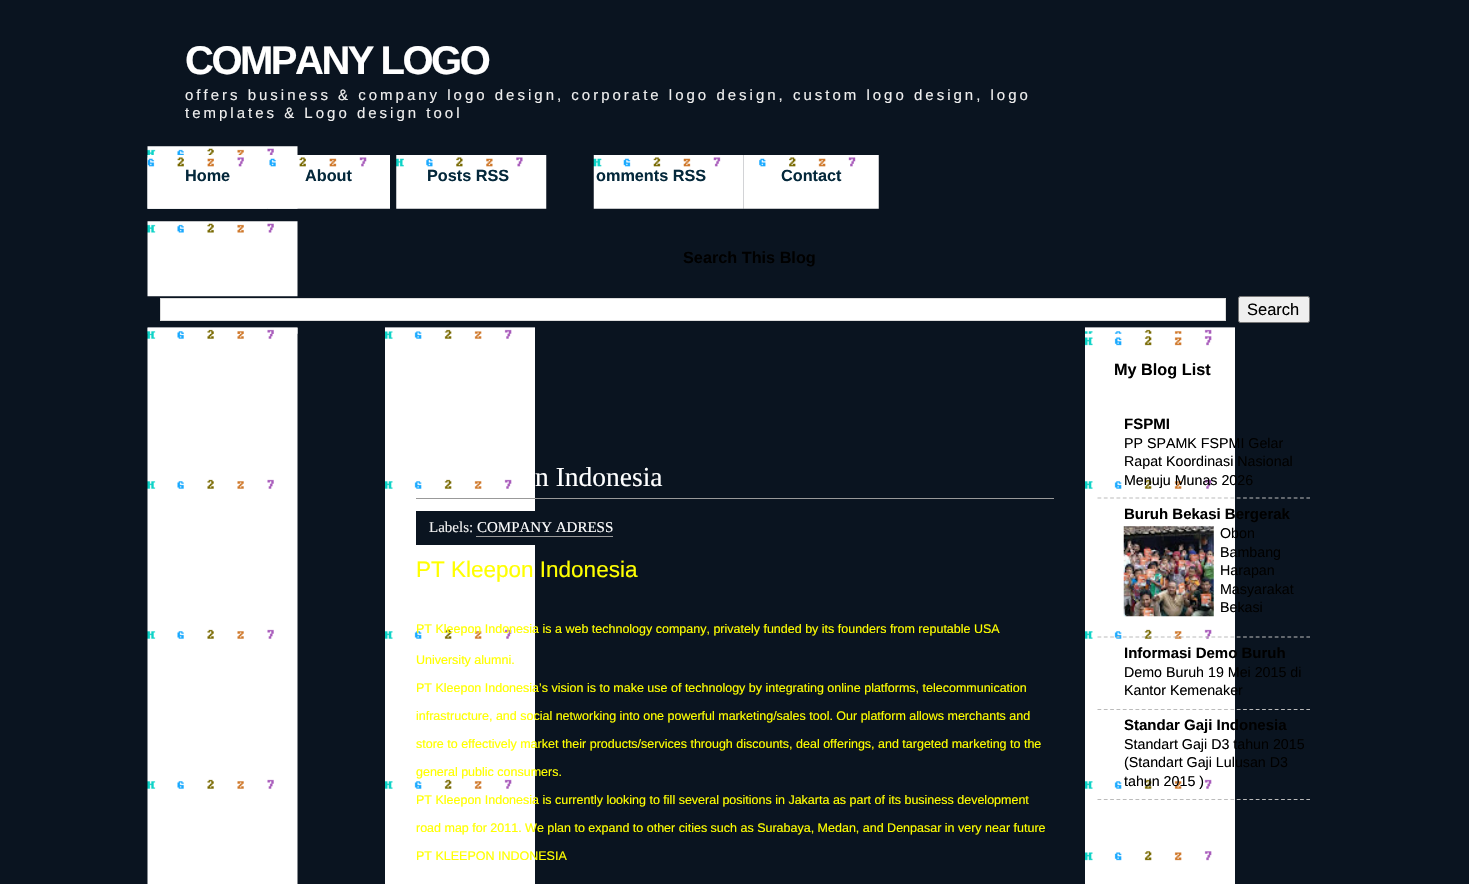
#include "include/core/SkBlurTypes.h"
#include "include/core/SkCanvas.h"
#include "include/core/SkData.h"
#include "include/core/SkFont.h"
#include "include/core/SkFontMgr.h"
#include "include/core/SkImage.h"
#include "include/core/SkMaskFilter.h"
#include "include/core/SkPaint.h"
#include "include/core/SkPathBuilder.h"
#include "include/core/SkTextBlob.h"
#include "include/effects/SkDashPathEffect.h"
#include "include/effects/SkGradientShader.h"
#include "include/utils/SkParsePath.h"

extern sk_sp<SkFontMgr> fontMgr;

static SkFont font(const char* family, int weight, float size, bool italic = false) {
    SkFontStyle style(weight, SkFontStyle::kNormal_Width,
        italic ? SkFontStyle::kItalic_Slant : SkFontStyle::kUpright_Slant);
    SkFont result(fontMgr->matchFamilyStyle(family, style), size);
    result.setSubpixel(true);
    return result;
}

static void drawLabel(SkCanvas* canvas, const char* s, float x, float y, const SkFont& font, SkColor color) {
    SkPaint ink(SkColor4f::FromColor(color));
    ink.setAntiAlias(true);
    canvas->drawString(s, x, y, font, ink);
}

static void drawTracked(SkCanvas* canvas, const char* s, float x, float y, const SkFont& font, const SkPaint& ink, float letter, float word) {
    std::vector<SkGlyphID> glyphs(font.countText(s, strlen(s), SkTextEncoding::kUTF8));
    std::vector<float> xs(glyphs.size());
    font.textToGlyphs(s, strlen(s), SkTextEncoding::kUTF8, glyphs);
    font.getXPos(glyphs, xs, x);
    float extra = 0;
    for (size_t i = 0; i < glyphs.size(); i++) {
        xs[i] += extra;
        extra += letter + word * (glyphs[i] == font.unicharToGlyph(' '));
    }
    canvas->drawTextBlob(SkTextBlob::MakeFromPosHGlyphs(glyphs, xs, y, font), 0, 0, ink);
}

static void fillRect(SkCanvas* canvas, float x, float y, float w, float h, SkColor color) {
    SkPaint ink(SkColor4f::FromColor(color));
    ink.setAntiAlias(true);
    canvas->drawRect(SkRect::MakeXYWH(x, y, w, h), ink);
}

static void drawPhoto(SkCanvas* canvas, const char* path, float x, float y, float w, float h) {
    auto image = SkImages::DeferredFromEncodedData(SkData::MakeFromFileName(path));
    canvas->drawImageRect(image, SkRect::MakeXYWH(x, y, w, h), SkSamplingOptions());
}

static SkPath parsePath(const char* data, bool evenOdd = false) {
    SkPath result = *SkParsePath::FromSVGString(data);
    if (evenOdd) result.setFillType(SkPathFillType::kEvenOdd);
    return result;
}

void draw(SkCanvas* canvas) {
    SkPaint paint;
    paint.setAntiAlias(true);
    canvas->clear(0xFF0A1420);
    SkFont font1 = font("Liberation Sans", 700, 40);
    paint.setColor(0xFFFFFFFF);
    drawTracked(canvas, "COMPANY LOGO", 185, 74, font1, paint, -2.5f, 0);
    SkFont font2 = font("Liberation Sans", 400, 15);
    paint.setColor(0xFFEEEEEE);
    drawTracked(canvas, "offers business & company logo design, corporate logo design, custom logo design, logo", 185, 100, font2, paint, 3, 0);
    drawTracked(canvas, "templates & Logo design tool", 185, 118, font2, paint, 3, 0);
    drawPhoto(canvas, "assets/img1.png", 147, 146, 151, 63);
    drawPhoto(canvas, "assets/img2.png", 147, 155, 121, 54);
    SkFont font3 = font("Liberation Sans", 700, 16.25f);
    drawLabel(canvas, "Home", 185, 181, font3, 0xFF04283B);
    drawPhoto(canvas, "assets/img3.png", 267, 155, 123, 54);
    drawLabel(canvas, "About", 305, 181, font3, 0xFF04283B);
    drawPhoto(canvas, "assets/img4.png", 396, 155, 151, 54);
    drawLabel(canvas, "Posts RSS", 427, 181, font3, 0xFF04283B);
    drawPhoto(canvas, "assets/img5.png", 593, 155, 151, 54);
    drawLabel(canvas, "omments RSS", 596, 181, font3, 0xFF04283B);
    drawPhoto(canvas, "assets/img6.png", 743, 155, 136, 54);
    drawLabel(canvas, "Contact", 781, 181, font3, 0xFF04283B);
    drawPhoto(canvas, "assets/img7.png", 147, 221, 151, 76);
    drawLabel(canvas, "Search This Blog", 683, 263, font3, 0xFF000000);
    paint.setColor(0xFFFFFFFF);
    canvas->drawRect(SkRect::MakeXYWH(160.5f, 298.5f, 1065, 22), paint);
    paint.setStroke(true);
    paint.setStrokeWidth(1);
    paint.setColor(0xFFDDDDDD);
    canvas->drawRect(SkRect::MakeXYWH(160.5f, 298.5f, 1065, 22), paint);
    paint.setStroke(false);
    paint.setColor(0xFFEFEFEF);
    canvas->drawRoundRect(SkRect::MakeXYWH(1238.5f, 296.5f, 71, 26), 2, 2, paint);
    paint.setStroke(true);
    paint.setColor(0xFF767676);
    canvas->drawRoundRect(SkRect::MakeXYWH(1238.5f, 296.5f, 71, 26), 2, 2, paint);
    SkFont font4 = font("Liberation Sans", 400, 16.5f);
    drawLabel(canvas, "Search", 1247, 315, font4, 0xFF000000);
    drawPhoto(canvas, "assets/img8.png", 147, 327, 151, 557);
    drawPhoto(canvas, "assets/img9.png", 147, 327, 151, 7);
    drawPhoto(canvas, "assets/img10.png", 385, 327, 150, 557);
    drawPhoto(canvas, "assets/img11.png", 385, 327, 150, 5);
    fillRect(canvas, 416, 498, 638, 1, 0xFF999999);
    SkFont font5 = font("Liberation Serif", 400, 27.5f);
    drawLabel(canvas, "n Indonesia", 535, 486, font5, 0xFFFFFFFF);
    fillRect(canvas, 416, 511, 119, 34, 0xFF0A1420);
    SkFont font6 = font("Liberation Serif", 400, 15);
    drawLabel(canvas, "Labels:", 429, 532, font6, 0xFFEEEEEE);
    drawLabel(canvas, "COMPANY ADRESS", 477, 532, font6, 0xFFFFFFFF);
    fillRect(canvas, 476, 536, 137, 1, 0xFF999999);
    SkFont font7 = font("Liberation Sans", 400, 22.5f);
    drawLabel(canvas, "PT Kleepon Indonesia", 416, 577, font7, 0xFFFFFF00);
    SkFont font8 = font("Liberation Sans", 400, 12.5f);
    drawLabel(canvas, "PT Kleepon Indonesia is a web technology company, privately funded by its founders from reputable USA", 416, 633, font8, 0xFFFFFF00);
    drawLabel(canvas, "University alumni.", 416, 664, font8, 0xFFFFFF00);
    drawLabel(canvas, "PT Kleepon Indonesia’s vision is to make use of technology by integrating online platforms, telecommunication", 416, 692, font8, 0xFFFFFF00);
    drawLabel(canvas, "infrastructure, and social networking into one powerful marketing/sales tool. Our platform allows merchants and", 416, 720, font8, 0xFFFFFF00);
    drawLabel(canvas, "store to effectively market their products/services through discounts, deal offerings, and targeted marketing to the", 416, 748, font8, 0xFFFFFF00);
    drawLabel(canvas, "general public consumers.", 416, 776, font8, 0xFFFFFF00);
    drawLabel(canvas, "PT Kleepon Indonesia is currently looking to fill several positions in Jakarta as part of its business development", 416, 804, font8, 0xFFFFFF00);
    drawLabel(canvas, "road map for 2011. We plan to expand to other cities such as Surabaya, Medan, and Denpasar in very near future", 416, 832, font8, 0xFFFFFF00);
    drawLabel(canvas, "PT KLEEPON INDONESIA", 416, 860, font8, 0xFFFFFF00);
    drawPhoto(canvas, "assets/img12.png", 1085, 327, 150, 557);
    drawPhoto(canvas, "assets/img13.png", 1085, 327, 150, 7);
    drawPhoto(canvas, "assets/img14.png", 1085, 333, 127, 13);
    drawLabel(canvas, "My Blog List", 1114, 375, font3, 0xFF000000);
    paint.setStrokeWidth(1.2f);
    paint.setColor(0xFFBBBBBB);
    paint.setPathEffect(SkDashPathEffect::Make({{3.75f, 2.58f}}, 0));
    canvas->drawPath(parsePath("M1097.5 498H1310"), paint);
    paint.setPathEffect(nullptr);
    SkFont font9 = font("Liberation Sans", 700, 15);
    drawLabel(canvas, "FSPMI", 1124, 429, font9, 0xFF000000);
    SkFont font10 = font("Liberation Sans", 400, 14.25f);
    drawLabel(canvas, "PP SPAMK FSPMI Gelar", 1124, 448, font10, 0xFF000000);
    drawLabel(canvas, "Rapat Koordinasi Nasional", 1124, 466, font10, 0xFF000000);
    drawLabel(canvas, "Menuju Munas 2026", 1124, 485, font10, 0xFF000000);
    paint.setPathEffect(SkDashPathEffect::Make({{3.75f, 2.58f}}, 0));
    canvas->drawPath(parsePath("M1097.5 637H1310"), paint);
    paint.setPathEffect(nullptr);
    drawLabel(canvas, "Buruh Bekasi Bergerak", 1124, 519, font9, 0xFF000000);
    drawPhoto(canvas, "assets/img15.png", 1123, 526, 91, 91);
    drawLabel(canvas, "Obon", 1220, 538, font10, 0xFF000000);
    drawLabel(canvas, "Bambang", 1220, 557, font10, 0xFF000000);
    drawLabel(canvas, "Harapan", 1220, 575, font10, 0xFF000000);
    drawLabel(canvas, "Masyarakat", 1220, 594, font10, 0xFF000000);
    drawLabel(canvas, "Bekasi", 1220, 612, font10, 0xFF000000);
    paint.setPathEffect(SkDashPathEffect::Make({{3.75f, 2.58f}}, 0));
    canvas->drawPath(parsePath("M1097.5 709.5H1310"), paint);
    paint.setPathEffect(nullptr);
    drawLabel(canvas, "Informasi Demo Buruh", 1124, 658, font9, 0xFF000000);
    drawLabel(canvas, "Demo Buruh 19 Mei 2015 di", 1124, 677, font10, 0xFF000000);
    drawLabel(canvas, "Kantor Kemenaker", 1124, 695, font10, 0xFF000000);
    paint.setPathEffect(SkDashPathEffect::Make({{3.75f, 2.58f}}, 0));
    canvas->drawPath(parsePath("M1097.5 799.5H1310"), paint);
    paint.setPathEffect(nullptr);
    drawLabel(canvas, "Standar Gaji Indonesia", 1124, 730, font9, 0xFF000000);
    drawLabel(canvas, "Standart Gaji D3 tahun 2015", 1124, 749, font10, 0xFF000000);
    drawLabel(canvas, "(Standart Gaji Lulusan D3", 1124, 767, font10, 0xFF000000);
    drawLabel(canvas, "tahun 2015 )", 1124, 786, font10, 0xFF000000);
    drawPhoto(canvas, "assets/img16.png", 1085, 851, 127, 10);
}
